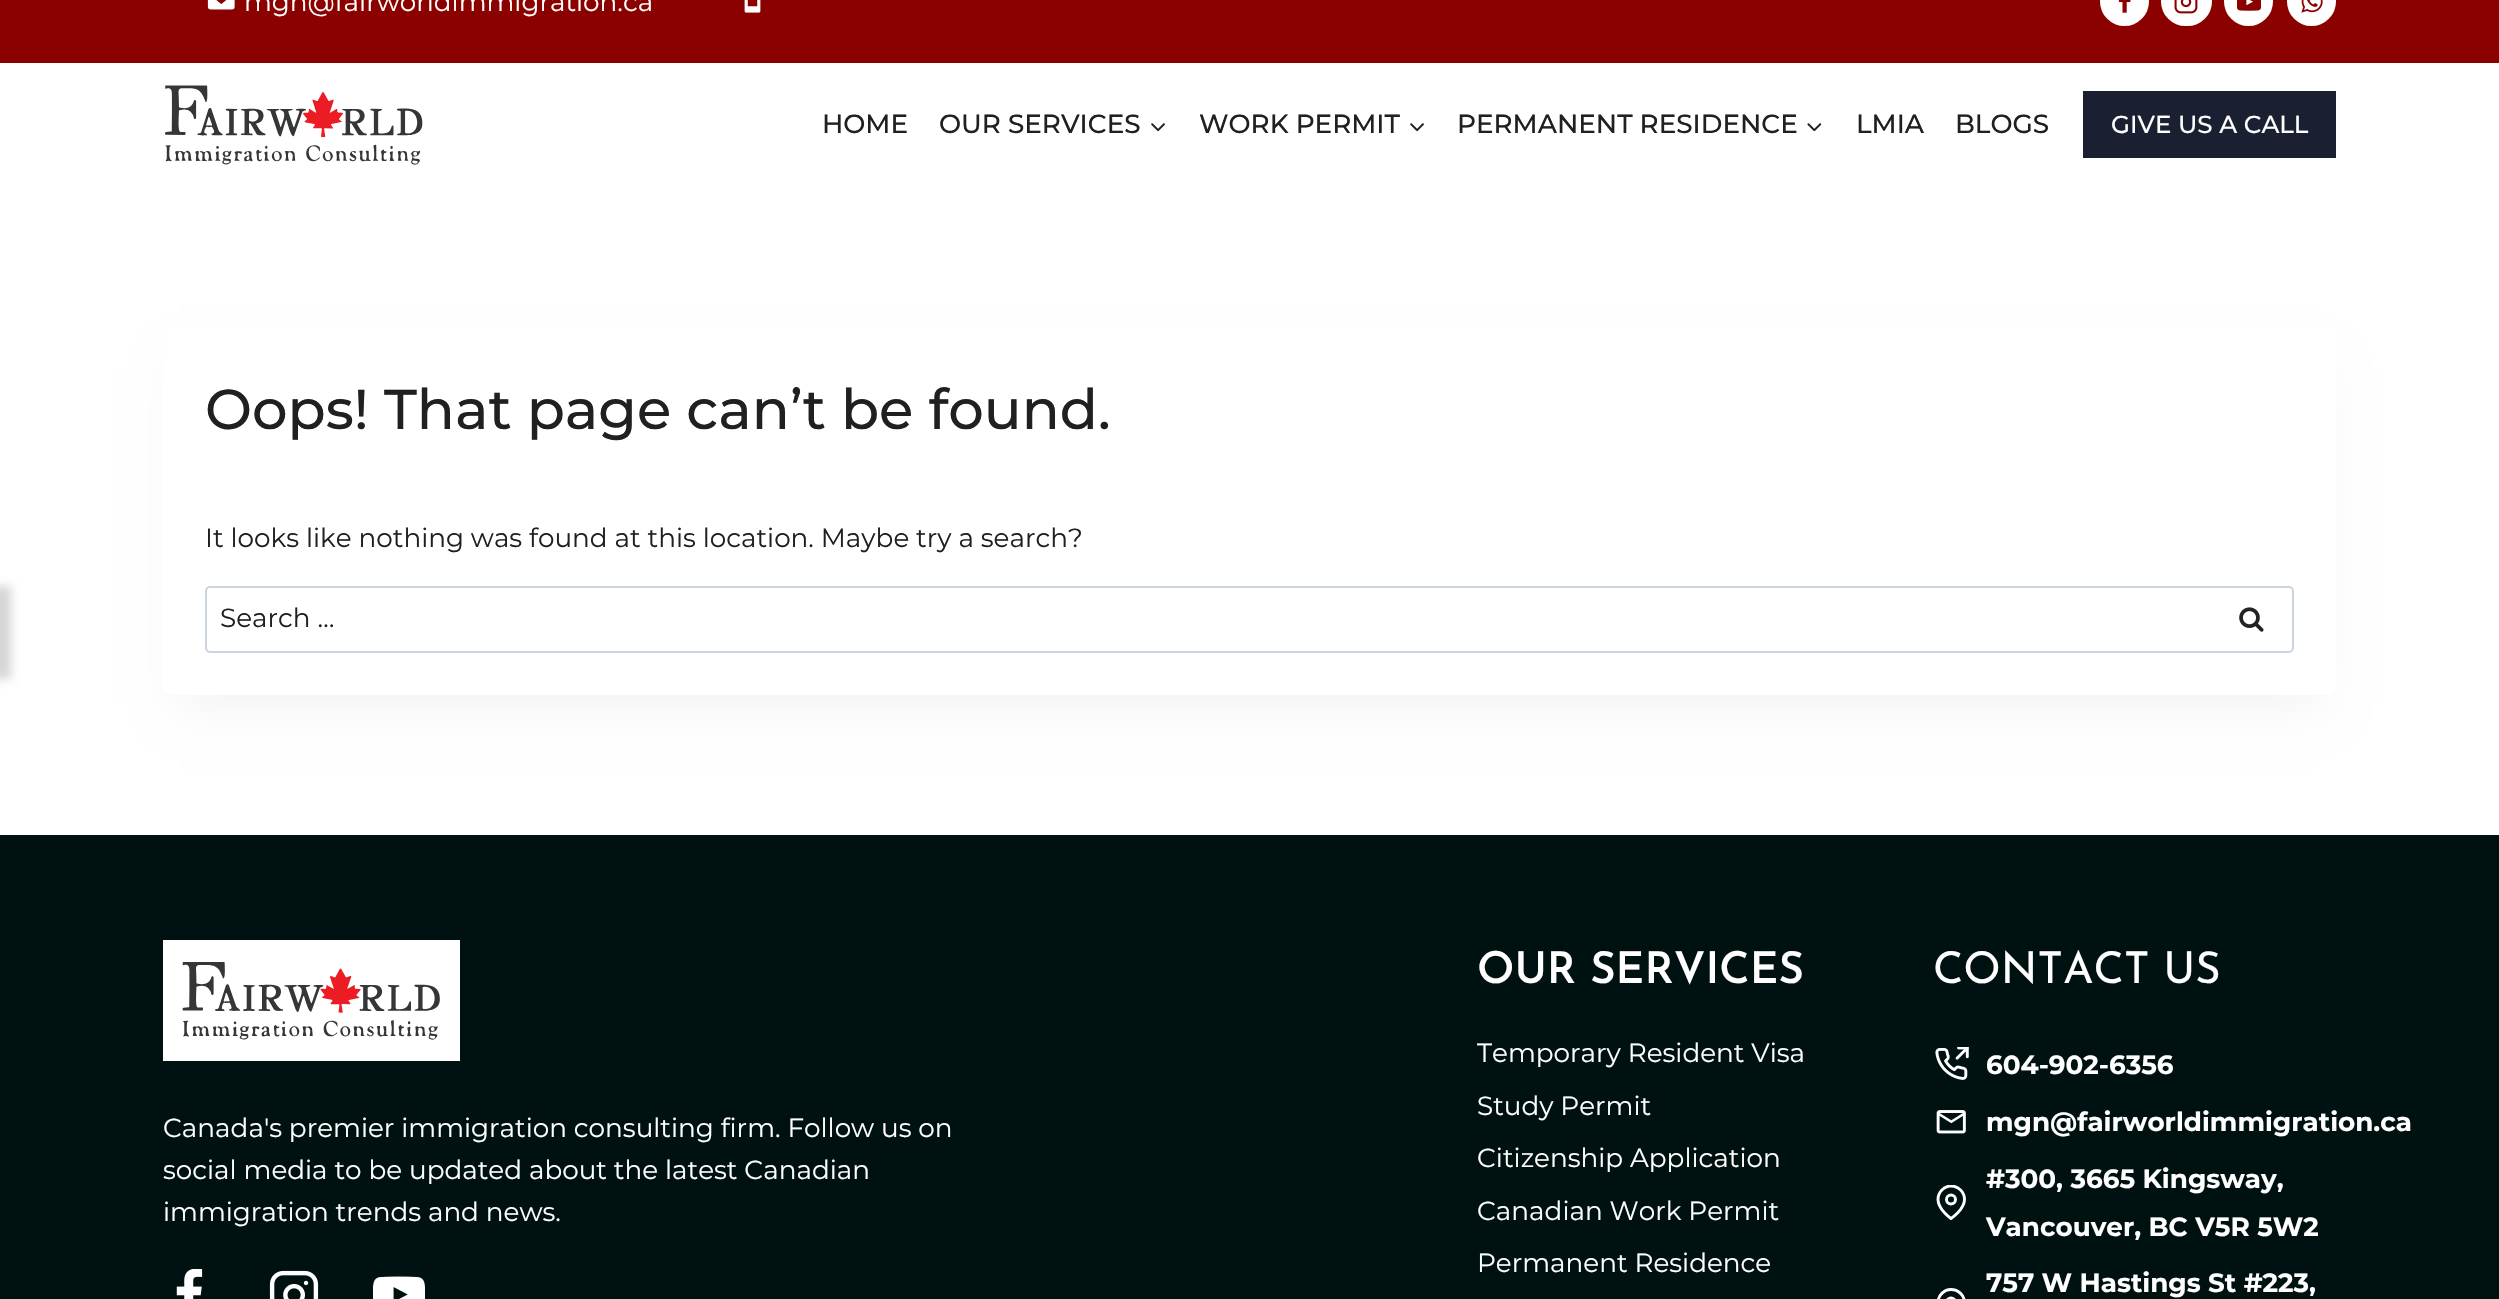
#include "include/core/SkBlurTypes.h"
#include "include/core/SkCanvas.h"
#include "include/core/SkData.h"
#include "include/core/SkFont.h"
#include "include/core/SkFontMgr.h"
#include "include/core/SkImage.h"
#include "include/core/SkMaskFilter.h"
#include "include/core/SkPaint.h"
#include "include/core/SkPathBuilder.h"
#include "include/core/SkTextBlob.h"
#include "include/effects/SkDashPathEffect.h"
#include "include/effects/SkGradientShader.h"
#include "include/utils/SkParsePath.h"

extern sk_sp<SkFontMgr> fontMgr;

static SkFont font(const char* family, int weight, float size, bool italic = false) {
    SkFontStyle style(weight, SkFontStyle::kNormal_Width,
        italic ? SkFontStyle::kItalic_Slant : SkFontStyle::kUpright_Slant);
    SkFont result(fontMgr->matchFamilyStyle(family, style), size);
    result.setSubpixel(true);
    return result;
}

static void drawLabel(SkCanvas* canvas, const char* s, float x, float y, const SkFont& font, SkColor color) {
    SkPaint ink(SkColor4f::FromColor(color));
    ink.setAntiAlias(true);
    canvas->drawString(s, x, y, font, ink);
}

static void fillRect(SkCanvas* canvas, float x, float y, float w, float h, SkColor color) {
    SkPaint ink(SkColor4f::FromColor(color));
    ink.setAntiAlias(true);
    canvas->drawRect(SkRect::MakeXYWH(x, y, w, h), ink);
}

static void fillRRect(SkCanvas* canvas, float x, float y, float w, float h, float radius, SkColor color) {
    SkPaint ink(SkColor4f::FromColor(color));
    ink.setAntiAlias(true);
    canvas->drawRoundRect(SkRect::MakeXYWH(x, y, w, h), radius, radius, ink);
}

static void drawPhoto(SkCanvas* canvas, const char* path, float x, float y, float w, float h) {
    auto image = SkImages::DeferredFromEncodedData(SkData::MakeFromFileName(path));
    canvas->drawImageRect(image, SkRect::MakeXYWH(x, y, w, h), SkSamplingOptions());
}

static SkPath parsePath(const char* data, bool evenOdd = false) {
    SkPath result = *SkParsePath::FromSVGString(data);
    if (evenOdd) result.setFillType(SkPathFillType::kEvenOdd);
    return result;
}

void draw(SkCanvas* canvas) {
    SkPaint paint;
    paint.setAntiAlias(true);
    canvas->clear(0xFFFFFFFF);
    paint.setColor(0x29000000);
    paint.setMaskFilter(SkMaskFilter::MakeBlur(kNormal_SkBlurStyle, 5));
    canvas->drawRect(SkRect::MakeXYWH(-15, 586, 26, 93), paint);
    paint.setMaskFilter(nullptr);
    fillRect(canvas, 0, 0, 2499, 63, 0xFF8B0100);
    drawPhoto(canvas, "assets/img1.png", 207, 0, 28, 10);
    SkFont font1 = font("Montserrat", 400, 26.25f);
    drawLabel(canvas, "mgn@fairworldimmigration.ca", 244, 11, font1, 0xFFFFFFFF);
    drawPhoto(canvas, "assets/img2.png", 744, 0, 17, 13);
    paint.setColor(0xFFFFFFFF);
    canvas->drawCircle(2124.5f, 1.5f, 24.5f, paint);
    drawPhoto(canvas, "assets/img3.png", 2118, 0, 13, 13);
    fillRRect(canvas, 2161, -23, 51, 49, 24.5f, 0xFFFFFFFF);
    drawPhoto(canvas, "assets/img4.png", 2174, 0, 24, 14);
    canvas->drawCircle(2248.5f, 1.5f, 24.5f, paint);
    drawPhoto(canvas, "assets/img5.png", 2237, 0, 24, 11);
    canvas->drawCircle(2311.5f, 1.5f, 24.5f, paint);
    drawPhoto(canvas, "assets/img6.png", 2301, 0, 22, 13);
    drawPhoto(canvas, "assets/img7.png", 165, 85, 258, 80);
    SkFont font2 = font("Montserrat", 500, 26.25f);
    drawLabel(canvas, "HOME", 822, 133, font2, 0xFF202020);
    drawLabel(canvas, "OUR SERVICES", 939, 133, font2, 0xFF202020);
    drawPhoto(canvas, "assets/img8.png", 1151, 123, 14, 9);
    drawLabel(canvas, "WORK PERMIT", 1199, 133, font2, 0xFF202020);
    drawPhoto(canvas, "assets/img8.png", 1410, 123, 14, 9);
    drawLabel(canvas, "PERMANENT RESIDENCE", 1457, 133, font2, 0xFF202020);
    drawPhoto(canvas, "assets/img9.png", 1807, 123, 15, 9);
    drawLabel(canvas, "LMIA", 1856, 133, font2, 0xFF202020);
    drawLabel(canvas, "BLOGS", 1955, 133, font2, 0xFF202020);
    fillRect(canvas, 2083, 91, 253, 67, 0xFF1A1F31);
    SkFont font3 = font("Montserrat", 500, 24.5f);
    drawLabel(canvas, "GIVE US A CALL", 2111, 133, font3, 0xFFFFFFFF);
    paint.setColor(0x0D000000);
    paint.setMaskFilter(SkMaskFilter::MakeBlur(kNormal_SkBlurStyle, 22));
    canvas->drawRect(SkRect::MakeXYWH(180, 369, 2139, 335), paint);
    paint.setMaskFilter(nullptr);
    fillRRect(canvas, 163, 326, 2173, 369, 7, 0xFFFFFFFF);
    SkFont font4 = font("Montserrat", 500, 56);
    drawLabel(canvas, "Oops! That page can’t be found.", 205, 429, font4, 0xFF202020);
    drawLabel(canvas, "It looks like nothing was found at this location. Maybe try a search?", 205, 547, font1, 0xFF202020);
    paint.setStroke(true);
    paint.setStrokeWidth(2);
    paint.setColor(0xFFCBD5E0);
    canvas->drawRoundRect(SkRect::MakeXYWH(206, 587, 2087, 65), 4, 4, paint);
    drawLabel(canvas, "Search …", 220, 627, font1, 0xFF202020);
    drawPhoto(canvas, "assets/img10.png", 2239, 607, 25, 25);
    fillRect(canvas, 0, 835, 2499, 464, 0xFF001111);
    fillRect(canvas, 163, 940, 297, 121, 0xFFFFFFFF);
    drawPhoto(canvas, "assets/img11.png", 182, 962, 258, 78);
    drawLabel(canvas, "Canada's premier immigration consulting firm. Follow us on", 163, 1137, font1, 0xFFFFFFFF);
    drawLabel(canvas, "social media to be updated about the latest Canadian", 163, 1179, font1, 0xFFFFFFFF);
    drawLabel(canvas, "immigration trends and news.", 163, 1221, font1, 0xFFFFFFFF);
    drawPhoto(canvas, "assets/img12.png", 176, 1269, 27, 30);
    drawPhoto(canvas, "assets/img13.png", 269, 1270, 50, 29);
    drawPhoto(canvas, "assets/img14.png", 373, 1276, 52, 23);
    SkFont font5 = font("Josefin Sans", 100, 43.75f);
    drawLabel(canvas, "OUR SERVICES", 1477, 983, font5, 0xFFFFFFFF);
    drawLabel(canvas, "Temporary Resident Visa", 1477, 1062, font1, 0xFFFFFFFF);
    drawLabel(canvas, "Study Permit", 1477, 1115, font1, 0xFFFFFFFF);
    drawLabel(canvas, "Citizenship Application", 1477, 1167, font1, 0xFFFFFFFF);
    drawLabel(canvas, "Canadian Work Permit", 1477, 1220, font1, 0xFFFFFFFF);
    drawLabel(canvas, "Permanent Residence", 1477, 1272, font1, 0xFFFFFFFF);
    SkFont font6 = font("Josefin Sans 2", 100, 43.75f);
    drawLabel(canvas, "CONTACT US", 1933, 983, font6, 0xFFFFFFFF);
    drawPhoto(canvas, "assets/img15.png", 1935, 1047, 34, 33);
    SkFont font7 = font("Montserrat", 700, 26.25f);
    drawLabel(canvas, "604-902-6356", 1986, 1074, font7, 0xFFFFFFFF);
    drawPhoto(canvas, "assets/img16.png", 1936, 1110, 30, 24);
    drawLabel(canvas, "mgn@fairworldimmigration.ca", 1986, 1131, font7, 0xFFFFFFFF);
    canvas->save();
    canvas->clipRect(SkRect::MakeXYWH(1934, 1185, 35, 35));
    paint.setStrokeWidth(2.9f);
    paint.setStrokeCap(SkPaint::kRound_Cap);
    paint.setStrokeJoin(SkPaint::kRound_Join);
    paint.setColor(0xFFFFFFFF);
    canvas->drawPath(parsePath("M1964.5 1199.5C1964.5 1209.5 1951 1218.5 1951 1218.5C1951 1218.5 1938 1209.5 1938 1199.5C1938 1192 1944 1186 1951 1186C1958.5 1186 1964.5 1192 1964.5 1199.5Z"), paint);
    canvas->restore();
    paint.setStrokeCap(SkPaint::kButt_Cap);
    paint.setStrokeJoin(SkPaint::kMiter_Join);
    canvas->drawCircle(1951, 1199.5f, 4.5f, paint);
    drawLabel(canvas, "#300, 3665 Kingsway,", 1986, 1188, font7, 0xFFFFFFFF);
    drawLabel(canvas, "Vancouver, BC V5R 5W2", 1986, 1236, font7, 0xFFFFFFFF);
    paint.setStrokeCap(SkPaint::kRound_Cap);
    paint.setStrokeJoin(SkPaint::kRound_Join);
    canvas->drawPath(parsePath("M1964.5 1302.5C1964.5 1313 1951 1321.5 1951 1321.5C1951 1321.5 1938 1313 1938 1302.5C1938 1295.5 1944 1289.5 1951 1289.5C1958.5 1289.5 1964.5 1295.5 1964.5 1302.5Z"), paint);
    paint.setStrokeCap(SkPaint::kButt_Cap);
    paint.setStrokeJoin(SkPaint::kMiter_Join);
    canvas->drawCircle(1951, 1302.5f, 4.5f, paint);
    drawLabel(canvas, "757 W Hastings St #223,", 1986, 1292, font7, 0xFFFFFFFF);
}
